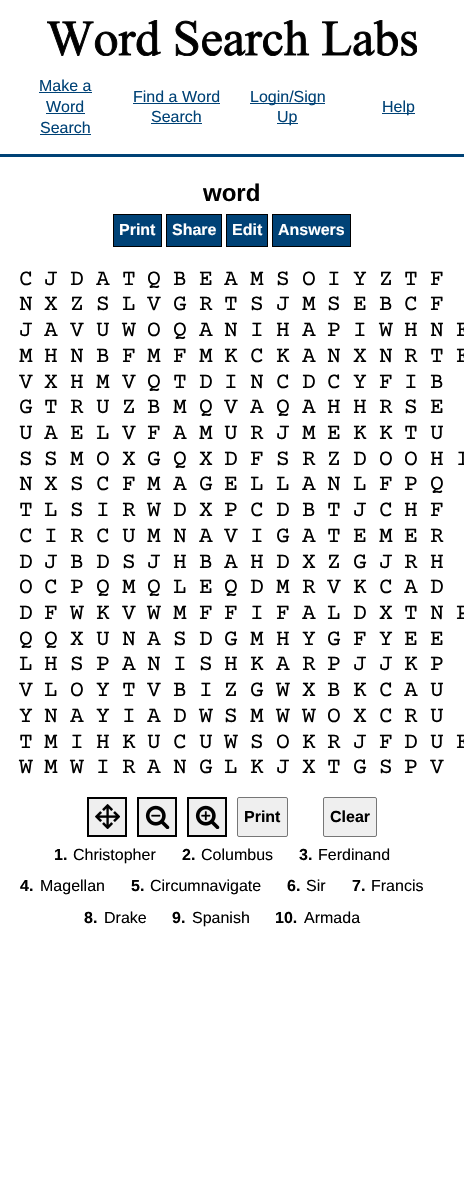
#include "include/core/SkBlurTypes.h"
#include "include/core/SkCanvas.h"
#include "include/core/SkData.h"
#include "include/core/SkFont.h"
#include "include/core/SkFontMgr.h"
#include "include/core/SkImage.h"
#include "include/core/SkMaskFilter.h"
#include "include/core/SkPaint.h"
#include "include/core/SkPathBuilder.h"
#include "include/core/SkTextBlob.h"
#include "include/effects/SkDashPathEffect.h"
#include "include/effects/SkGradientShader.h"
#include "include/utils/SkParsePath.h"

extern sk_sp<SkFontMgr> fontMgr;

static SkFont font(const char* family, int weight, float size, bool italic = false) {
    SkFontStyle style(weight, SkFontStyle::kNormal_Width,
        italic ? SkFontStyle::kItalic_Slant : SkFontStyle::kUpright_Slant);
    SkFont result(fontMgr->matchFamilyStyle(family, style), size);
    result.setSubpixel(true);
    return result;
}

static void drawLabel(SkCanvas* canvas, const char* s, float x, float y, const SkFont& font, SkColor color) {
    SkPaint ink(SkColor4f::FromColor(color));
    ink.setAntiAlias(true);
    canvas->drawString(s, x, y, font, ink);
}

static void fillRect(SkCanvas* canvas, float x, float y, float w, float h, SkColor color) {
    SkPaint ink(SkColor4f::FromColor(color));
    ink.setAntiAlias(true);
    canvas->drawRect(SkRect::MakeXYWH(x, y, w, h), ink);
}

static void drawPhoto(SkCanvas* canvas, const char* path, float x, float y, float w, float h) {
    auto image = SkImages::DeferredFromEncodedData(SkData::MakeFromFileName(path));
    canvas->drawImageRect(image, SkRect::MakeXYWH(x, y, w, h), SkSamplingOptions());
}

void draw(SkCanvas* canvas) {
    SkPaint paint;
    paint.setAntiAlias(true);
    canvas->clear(0xFFFFFFFF);
    drawPhoto(canvas, "assets/img1.png", 47, 20, 370, 36);
    SkFont font1 = font("Liberation Sans", 400, 16);
    drawLabel(canvas, "Make a", 39, 91, font1, 0xFF004276);
    fillRect(canvas, 39, 92, 53, 1, 0xFF004276);
    drawLabel(canvas, "Word", 46, 112, font1, 0xFF004276);
    fillRect(canvas, 46, 113, 39, 1, 0xFF004276);
    drawLabel(canvas, "Search", 40, 133, font1, 0xFF004276);
    fillRect(canvas, 40, 134, 51, 1, 0xFF004276);
    drawLabel(canvas, "Find a Word", 133, 102, font1, 0xFF004276);
    fillRect(canvas, 133, 103, 87, 1, 0xFF004276);
    drawLabel(canvas, "Search", 151, 122, font1, 0xFF004276);
    fillRect(canvas, 151, 123, 51, 1, 0xFF004276);
    fillRect(canvas, 250, 103, 75, 1, 0xFF004276);
    drawLabel(canvas, "Login/Sign", 250, 102, font1, 0xFF004276);
    fillRect(canvas, 277, 123, 21, 1, 0xFF004276);
    drawLabel(canvas, "Up", 277, 122, font1, 0xFF004276);
    fillRect(canvas, 382, 113, 33, 1, 0xFF004276);
    drawLabel(canvas, "Help", 382, 112, font1, 0xFF004276);
    fillRect(canvas, 0, 154, 464, 3, 0xFF004276);
    SkFont font2 = font("Liberation Sans", 700, 24);
    drawLabel(canvas, "word", 203, 201, font2, 0xFF000000);
    paint.setColor(0xFF004276);
    canvas->drawRect(SkRect::MakeXYWH(113.5f, 214.5f, 48, 32), paint);
    paint.setStroke(true);
    paint.setStrokeWidth(1);
    paint.setColor(0xFF000000);
    canvas->drawRect(SkRect::MakeXYWH(113.5f, 214.5f, 48, 32), paint);
    SkFont font3 = font("Liberation Sans", 700, 16);
    drawLabel(canvas, "Print", 119, 235, font3, 0xFFFFFFFF);
    paint.setStroke(false);
    paint.setColor(0xFF004276);
    canvas->drawRect(SkRect::MakeXYWH(166.5f, 214.5f, 55, 32), paint);
    paint.setStroke(true);
    paint.setColor(0xFF000000);
    canvas->drawRect(SkRect::MakeXYWH(166.5f, 214.5f, 55, 32), paint);
    drawLabel(canvas, "Share", 172, 235, font3, 0xFFFFFFFF);
    paint.setStroke(false);
    paint.setColor(0xFF004276);
    canvas->drawRect(SkRect::MakeXYWH(226.5f, 214.5f, 41, 32), paint);
    paint.setStroke(true);
    paint.setColor(0xFF000000);
    canvas->drawRect(SkRect::MakeXYWH(226.5f, 214.5f, 41, 32), paint);
    drawLabel(canvas, "Edit", 232, 235, font3, 0xFFFFFFFF);
    paint.setStroke(false);
    paint.setColor(0xFF004276);
    canvas->drawRect(SkRect::MakeXYWH(272.5f, 214.5f, 78, 32), paint);
    paint.setStroke(true);
    paint.setColor(0xFF000000);
    canvas->drawRect(SkRect::MakeXYWH(272.5f, 214.5f, 78, 32), paint);
    drawLabel(canvas, "Answers", 278, 235, font3, 0xFFFFFFFF);
    SkFont font4 = font("Courier Prime", 400, 23);
    drawLabel(canvas, "C", 19, 285, font4, 0xFF000000);
    drawLabel(canvas, "J", 44, 285, font4, 0xFF000000);
    drawLabel(canvas, "D", 70, 285, font4, 0xFF000000);
    drawLabel(canvas, "A", 96, 285, font4, 0xFF000000);
    drawLabel(canvas, "T", 122, 285, font4, 0xFF000000);
    drawLabel(canvas, "Q", 147, 285, font4, 0xFF000000);
    drawLabel(canvas, "B", 173, 285, font4, 0xFF000000);
    drawLabel(canvas, "E", 199, 285, font4, 0xFF000000);
    drawLabel(canvas, "A", 224, 285, font4, 0xFF000000);
    drawLabel(canvas, "M", 250, 285, font4, 0xFF000000);
    drawLabel(canvas, "S", 276, 285, font4, 0xFF000000);
    drawLabel(canvas, "O", 302, 285, font4, 0xFF000000);
    drawLabel(canvas, "I", 327, 285, font4, 0xFF000000);
    drawLabel(canvas, "Y", 353, 285, font4, 0xFF000000);
    drawLabel(canvas, "Z", 379, 285, font4, 0xFF000000);
    drawLabel(canvas, "T", 404, 285, font4, 0xFF000000);
    drawLabel(canvas, "F", 430, 285, font4, 0xFF000000);
    drawLabel(canvas, "N", 19, 310, font4, 0xFF000000);
    drawLabel(canvas, "X", 44, 310, font4, 0xFF000000);
    drawLabel(canvas, "Z", 70, 310, font4, 0xFF000000);
    drawLabel(canvas, "S", 96, 310, font4, 0xFF000000);
    drawLabel(canvas, "L", 122, 310, font4, 0xFF000000);
    drawLabel(canvas, "V", 147, 310, font4, 0xFF000000);
    drawLabel(canvas, "G", 173, 310, font4, 0xFF000000);
    drawLabel(canvas, "R", 199, 310, font4, 0xFF000000);
    drawLabel(canvas, "T", 224, 310, font4, 0xFF000000);
    drawLabel(canvas, "S", 250, 310, font4, 0xFF000000);
    drawLabel(canvas, "J", 276, 310, font4, 0xFF000000);
    drawLabel(canvas, "M", 302, 310, font4, 0xFF000000);
    drawLabel(canvas, "S", 327, 310, font4, 0xFF000000);
    drawLabel(canvas, "E", 353, 310, font4, 0xFF000000);
    drawLabel(canvas, "B", 379, 310, font4, 0xFF000000);
    drawLabel(canvas, "C", 404, 310, font4, 0xFF000000);
    drawLabel(canvas, "F", 430, 310, font4, 0xFF000000);
    drawLabel(canvas, "J", 19, 336, font4, 0xFF000000);
    drawLabel(canvas, "A", 44, 336, font4, 0xFF000000);
    drawLabel(canvas, "V", 70, 336, font4, 0xFF000000);
    drawLabel(canvas, "U", 96, 336, font4, 0xFF000000);
    drawLabel(canvas, "W", 122, 336, font4, 0xFF000000);
    drawLabel(canvas, "O", 147, 336, font4, 0xFF000000);
    drawLabel(canvas, "Q", 173, 336, font4, 0xFF000000);
    drawLabel(canvas, "A", 199, 336, font4, 0xFF000000);
    drawLabel(canvas, "N", 224, 336, font4, 0xFF000000);
    drawLabel(canvas, "I", 250, 336, font4, 0xFF000000);
    drawLabel(canvas, "H", 276, 336, font4, 0xFF000000);
    drawLabel(canvas, "A", 302, 336, font4, 0xFF000000);
    drawLabel(canvas, "P", 327, 336, font4, 0xFF000000);
    drawLabel(canvas, "I", 353, 336, font4, 0xFF000000);
    drawLabel(canvas, "W", 379, 336, font4, 0xFF000000);
    drawLabel(canvas, "H", 404, 336, font4, 0xFF000000);
    drawLabel(canvas, "N", 430, 336, font4, 0xFF000000);
    drawLabel(canvas, "F", 456, 336, font4, 0xFF000000);
    drawLabel(canvas, "M", 19, 362, font4, 0xFF000000);
    drawLabel(canvas, "H", 44, 362, font4, 0xFF000000);
    drawLabel(canvas, "N", 70, 362, font4, 0xFF000000);
    drawLabel(canvas, "B", 96, 362, font4, 0xFF000000);
    drawLabel(canvas, "F", 122, 362, font4, 0xFF000000);
    drawLabel(canvas, "M", 147, 362, font4, 0xFF000000);
    drawLabel(canvas, "F", 173, 362, font4, 0xFF000000);
    drawLabel(canvas, "M", 199, 362, font4, 0xFF000000);
    drawLabel(canvas, "K", 224, 362, font4, 0xFF000000);
    drawLabel(canvas, "C", 250, 362, font4, 0xFF000000);
    drawLabel(canvas, "K", 276, 362, font4, 0xFF000000);
    drawLabel(canvas, "A", 302, 362, font4, 0xFF000000);
    drawLabel(canvas, "N", 327, 362, font4, 0xFF000000);
    drawLabel(canvas, "X", 353, 362, font4, 0xFF000000);
    drawLabel(canvas, "N", 379, 362, font4, 0xFF000000);
    drawLabel(canvas, "R", 404, 362, font4, 0xFF000000);
    drawLabel(canvas, "T", 430, 362, font4, 0xFF000000);
    drawLabel(canvas, "F", 456, 362, font4, 0xFF000000);
    drawLabel(canvas, "V", 19, 388, font4, 0xFF000000);
    drawLabel(canvas, "X", 44, 388, font4, 0xFF000000);
    drawLabel(canvas, "H", 70, 388, font4, 0xFF000000);
    drawLabel(canvas, "M", 96, 388, font4, 0xFF000000);
    drawLabel(canvas, "V", 122, 388, font4, 0xFF000000);
    drawLabel(canvas, "Q", 147, 388, font4, 0xFF000000);
    drawLabel(canvas, "T", 173, 388, font4, 0xFF000000);
    drawLabel(canvas, "D", 199, 388, font4, 0xFF000000);
    drawLabel(canvas, "I", 224, 388, font4, 0xFF000000);
    drawLabel(canvas, "N", 250, 388, font4, 0xFF000000);
    drawLabel(canvas, "C", 276, 388, font4, 0xFF000000);
    drawLabel(canvas, "D", 302, 388, font4, 0xFF000000);
    drawLabel(canvas, "C", 327, 388, font4, 0xFF000000);
    drawLabel(canvas, "Y", 353, 388, font4, 0xFF000000);
    drawLabel(canvas, "F", 379, 388, font4, 0xFF000000);
    drawLabel(canvas, "I", 404, 388, font4, 0xFF000000);
    drawLabel(canvas, "B", 430, 388, font4, 0xFF000000);
    drawLabel(canvas, "G", 19, 413, font4, 0xFF000000);
    drawLabel(canvas, "T", 44, 413, font4, 0xFF000000);
    drawLabel(canvas, "R", 70, 413, font4, 0xFF000000);
    drawLabel(canvas, "U", 96, 413, font4, 0xFF000000);
    drawLabel(canvas, "Z", 122, 413, font4, 0xFF000000);
    drawLabel(canvas, "B", 147, 413, font4, 0xFF000000);
    drawLabel(canvas, "M", 173, 413, font4, 0xFF000000);
    drawLabel(canvas, "Q", 199, 413, font4, 0xFF000000);
    drawLabel(canvas, "V", 224, 413, font4, 0xFF000000);
    drawLabel(canvas, "A", 250, 413, font4, 0xFF000000);
    drawLabel(canvas, "Q", 276, 413, font4, 0xFF000000);
    drawLabel(canvas, "A", 302, 413, font4, 0xFF000000);
    drawLabel(canvas, "H", 327, 413, font4, 0xFF000000);
    drawLabel(canvas, "H", 353, 413, font4, 0xFF000000);
    drawLabel(canvas, "R", 379, 413, font4, 0xFF000000);
    drawLabel(canvas, "S", 404, 413, font4, 0xFF000000);
    drawLabel(canvas, "E", 430, 413, font4, 0xFF000000);
    drawLabel(canvas, "U", 19, 439, font4, 0xFF000000);
    drawLabel(canvas, "A", 44, 439, font4, 0xFF000000);
    drawLabel(canvas, "E", 70, 439, font4, 0xFF000000);
    drawLabel(canvas, "L", 96, 439, font4, 0xFF000000);
    drawLabel(canvas, "V", 122, 439, font4, 0xFF000000);
    drawLabel(canvas, "F", 147, 439, font4, 0xFF000000);
    drawLabel(canvas, "A", 173, 439, font4, 0xFF000000);
    drawLabel(canvas, "M", 199, 439, font4, 0xFF000000);
    drawLabel(canvas, "U", 224, 439, font4, 0xFF000000);
    drawLabel(canvas, "R", 250, 439, font4, 0xFF000000);
    drawLabel(canvas, "J", 276, 439, font4, 0xFF000000);
    drawLabel(canvas, "M", 302, 439, font4, 0xFF000000);
    drawLabel(canvas, "E", 327, 439, font4, 0xFF000000);
    drawLabel(canvas, "K", 353, 439, font4, 0xFF000000);
    drawLabel(canvas, "K", 379, 439, font4, 0xFF000000);
    drawLabel(canvas, "T", 404, 439, font4, 0xFF000000);
    drawLabel(canvas, "U", 430, 439, font4, 0xFF000000);
    drawLabel(canvas, "S", 19, 465, font4, 0xFF000000);
    drawLabel(canvas, "S", 44, 465, font4, 0xFF000000);
    drawLabel(canvas, "M", 70, 465, font4, 0xFF000000);
    drawLabel(canvas, "O", 96, 465, font4, 0xFF000000);
    drawLabel(canvas, "X", 122, 465, font4, 0xFF000000);
    drawLabel(canvas, "G", 147, 465, font4, 0xFF000000);
    drawLabel(canvas, "Q", 173, 465, font4, 0xFF000000);
    drawLabel(canvas, "X", 199, 465, font4, 0xFF000000);
    drawLabel(canvas, "D", 224, 465, font4, 0xFF000000);
    drawLabel(canvas, "F", 250, 465, font4, 0xFF000000);
    drawLabel(canvas, "S", 276, 465, font4, 0xFF000000);
    drawLabel(canvas, "R", 302, 465, font4, 0xFF000000);
    drawLabel(canvas, "Z", 327, 465, font4, 0xFF000000);
    drawLabel(canvas, "D", 353, 465, font4, 0xFF000000);
    drawLabel(canvas, "O", 379, 465, font4, 0xFF000000);
    drawLabel(canvas, "O", 404, 465, font4, 0xFF000000);
    drawLabel(canvas, "H", 430, 465, font4, 0xFF000000);
    drawLabel(canvas, "I", 456, 465, font4, 0xFF000000);
    drawLabel(canvas, "N", 19, 490, font4, 0xFF000000);
    drawLabel(canvas, "X", 44, 490, font4, 0xFF000000);
    drawLabel(canvas, "S", 70, 490, font4, 0xFF000000);
    drawLabel(canvas, "C", 96, 490, font4, 0xFF000000);
    drawLabel(canvas, "F", 122, 490, font4, 0xFF000000);
    drawLabel(canvas, "M", 147, 490, font4, 0xFF000000);
    drawLabel(canvas, "A", 173, 490, font4, 0xFF000000);
    drawLabel(canvas, "G", 199, 490, font4, 0xFF000000);
    drawLabel(canvas, "E", 224, 490, font4, 0xFF000000);
    drawLabel(canvas, "L", 250, 490, font4, 0xFF000000);
    drawLabel(canvas, "L", 276, 490, font4, 0xFF000000);
    drawLabel(canvas, "A", 302, 490, font4, 0xFF000000);
    drawLabel(canvas, "N", 327, 490, font4, 0xFF000000);
    drawLabel(canvas, "L", 353, 490, font4, 0xFF000000);
    drawLabel(canvas, "F", 379, 490, font4, 0xFF000000);
    drawLabel(canvas, "P", 404, 490, font4, 0xFF000000);
    drawLabel(canvas, "Q", 430, 490, font4, 0xFF000000);
    drawLabel(canvas, "T", 19, 516, font4, 0xFF000000);
    drawLabel(canvas, "L", 44, 516, font4, 0xFF000000);
    drawLabel(canvas, "S", 70, 516, font4, 0xFF000000);
    drawLabel(canvas, "I", 96, 516, font4, 0xFF000000);
    drawLabel(canvas, "R", 122, 516, font4, 0xFF000000);
    drawLabel(canvas, "W", 147, 516, font4, 0xFF000000);
    drawLabel(canvas, "D", 173, 516, font4, 0xFF000000);
    drawLabel(canvas, "X", 199, 516, font4, 0xFF000000);
    drawLabel(canvas, "P", 224, 516, font4, 0xFF000000);
    drawLabel(canvas, "C", 250, 516, font4, 0xFF000000);
    drawLabel(canvas, "D", 276, 516, font4, 0xFF000000);
    drawLabel(canvas, "B", 302, 516, font4, 0xFF000000);
    drawLabel(canvas, "T", 327, 516, font4, 0xFF000000);
    drawLabel(canvas, "J", 353, 516, font4, 0xFF000000);
    drawLabel(canvas, "C", 379, 516, font4, 0xFF000000);
    drawLabel(canvas, "H", 404, 516, font4, 0xFF000000);
    drawLabel(canvas, "F", 430, 516, font4, 0xFF000000);
    drawLabel(canvas, "C", 19, 542, font4, 0xFF000000);
    drawLabel(canvas, "I", 44, 542, font4, 0xFF000000);
    drawLabel(canvas, "R", 70, 542, font4, 0xFF000000);
    drawLabel(canvas, "C", 96, 542, font4, 0xFF000000);
    drawLabel(canvas, "U", 122, 542, font4, 0xFF000000);
    drawLabel(canvas, "M", 147, 542, font4, 0xFF000000);
    drawLabel(canvas, "N", 173, 542, font4, 0xFF000000);
    drawLabel(canvas, "A", 199, 542, font4, 0xFF000000);
    drawLabel(canvas, "V", 224, 542, font4, 0xFF000000);
    drawLabel(canvas, "I", 250, 542, font4, 0xFF000000);
    drawLabel(canvas, "G", 276, 542, font4, 0xFF000000);
    drawLabel(canvas, "A", 302, 542, font4, 0xFF000000);
    drawLabel(canvas, "T", 327, 542, font4, 0xFF000000);
    drawLabel(canvas, "E", 353, 542, font4, 0xFF000000);
    drawLabel(canvas, "M", 379, 542, font4, 0xFF000000);
    drawLabel(canvas, "E", 404, 542, font4, 0xFF000000);
    drawLabel(canvas, "R", 430, 542, font4, 0xFF000000);
    drawLabel(canvas, "D", 19, 568, font4, 0xFF000000);
    drawLabel(canvas, "J", 44, 568, font4, 0xFF000000);
    drawLabel(canvas, "B", 70, 568, font4, 0xFF000000);
    drawLabel(canvas, "D", 96, 568, font4, 0xFF000000);
    drawLabel(canvas, "S", 122, 568, font4, 0xFF000000);
    drawLabel(canvas, "J", 147, 568, font4, 0xFF000000);
    drawLabel(canvas, "H", 173, 568, font4, 0xFF000000);
    drawLabel(canvas, "B", 199, 568, font4, 0xFF000000);
    drawLabel(canvas, "A", 224, 568, font4, 0xFF000000);
    drawLabel(canvas, "H", 250, 568, font4, 0xFF000000);
    drawLabel(canvas, "D", 276, 568, font4, 0xFF000000);
    drawLabel(canvas, "X", 302, 568, font4, 0xFF000000);
    drawLabel(canvas, "Z", 327, 568, font4, 0xFF000000);
    drawLabel(canvas, "G", 353, 568, font4, 0xFF000000);
    drawLabel(canvas, "J", 379, 568, font4, 0xFF000000);
    drawLabel(canvas, "R", 404, 568, font4, 0xFF000000);
    drawLabel(canvas, "H", 430, 568, font4, 0xFF000000);
    drawLabel(canvas, "O", 19, 593, font4, 0xFF000000);
    drawLabel(canvas, "C", 44, 593, font4, 0xFF000000);
    drawLabel(canvas, "P", 70, 593, font4, 0xFF000000);
    drawLabel(canvas, "Q", 96, 593, font4, 0xFF000000);
    drawLabel(canvas, "M", 122, 593, font4, 0xFF000000);
    drawLabel(canvas, "Q", 147, 593, font4, 0xFF000000);
    drawLabel(canvas, "L", 173, 593, font4, 0xFF000000);
    drawLabel(canvas, "E", 199, 593, font4, 0xFF000000);
    drawLabel(canvas, "Q", 224, 593, font4, 0xFF000000);
    drawLabel(canvas, "D", 250, 593, font4, 0xFF000000);
    drawLabel(canvas, "M", 276, 593, font4, 0xFF000000);
    drawLabel(canvas, "R", 302, 593, font4, 0xFF000000);
    drawLabel(canvas, "V", 327, 593, font4, 0xFF000000);
    drawLabel(canvas, "K", 353, 593, font4, 0xFF000000);
    drawLabel(canvas, "C", 379, 593, font4, 0xFF000000);
    drawLabel(canvas, "A", 404, 593, font4, 0xFF000000);
    drawLabel(canvas, "D", 430, 593, font4, 0xFF000000);
    drawLabel(canvas, "D", 19, 619, font4, 0xFF000000);
    drawLabel(canvas, "F", 44, 619, font4, 0xFF000000);
    drawLabel(canvas, "W", 70, 619, font4, 0xFF000000);
    drawLabel(canvas, "K", 96, 619, font4, 0xFF000000);
    drawLabel(canvas, "V", 122, 619, font4, 0xFF000000);
    drawLabel(canvas, "W", 147, 619, font4, 0xFF000000);
    drawLabel(canvas, "M", 173, 619, font4, 0xFF000000);
    drawLabel(canvas, "F", 199, 619, font4, 0xFF000000);
    drawLabel(canvas, "F", 224, 619, font4, 0xFF000000);
    drawLabel(canvas, "I", 250, 619, font4, 0xFF000000);
    drawLabel(canvas, "F", 276, 619, font4, 0xFF000000);
    drawLabel(canvas, "A", 302, 619, font4, 0xFF000000);
    drawLabel(canvas, "L", 327, 619, font4, 0xFF000000);
    drawLabel(canvas, "D", 353, 619, font4, 0xFF000000);
    drawLabel(canvas, "X", 379, 619, font4, 0xFF000000);
    drawLabel(canvas, "T", 404, 619, font4, 0xFF000000);
    drawLabel(canvas, "N", 430, 619, font4, 0xFF000000);
    drawLabel(canvas, "P", 456, 619, font4, 0xFF000000);
    drawLabel(canvas, "Q", 19, 645, font4, 0xFF000000);
    drawLabel(canvas, "Q", 44, 645, font4, 0xFF000000);
    drawLabel(canvas, "X", 70, 645, font4, 0xFF000000);
    drawLabel(canvas, "U", 96, 645, font4, 0xFF000000);
    drawLabel(canvas, "N", 122, 645, font4, 0xFF000000);
    drawLabel(canvas, "A", 147, 645, font4, 0xFF000000);
    drawLabel(canvas, "S", 173, 645, font4, 0xFF000000);
    drawLabel(canvas, "D", 199, 645, font4, 0xFF000000);
    drawLabel(canvas, "G", 224, 645, font4, 0xFF000000);
    drawLabel(canvas, "M", 250, 645, font4, 0xFF000000);
    drawLabel(canvas, "H", 276, 645, font4, 0xFF000000);
    drawLabel(canvas, "Y", 302, 645, font4, 0xFF000000);
    drawLabel(canvas, "G", 327, 645, font4, 0xFF000000);
    drawLabel(canvas, "F", 353, 645, font4, 0xFF000000);
    drawLabel(canvas, "Y", 379, 645, font4, 0xFF000000);
    drawLabel(canvas, "E", 404, 645, font4, 0xFF000000);
    drawLabel(canvas, "E", 430, 645, font4, 0xFF000000);
    drawLabel(canvas, "L", 19, 670, font4, 0xFF000000);
    drawLabel(canvas, "H", 44, 670, font4, 0xFF000000);
    drawLabel(canvas, "S", 70, 670, font4, 0xFF000000);
    drawLabel(canvas, "P", 96, 670, font4, 0xFF000000);
    drawLabel(canvas, "A", 122, 670, font4, 0xFF000000);
    drawLabel(canvas, "N", 147, 670, font4, 0xFF000000);
    drawLabel(canvas, "I", 173, 670, font4, 0xFF000000);
    drawLabel(canvas, "S", 199, 670, font4, 0xFF000000);
    drawLabel(canvas, "H", 224, 670, font4, 0xFF000000);
    drawLabel(canvas, "K", 250, 670, font4, 0xFF000000);
    drawLabel(canvas, "A", 276, 670, font4, 0xFF000000);
    drawLabel(canvas, "R", 302, 670, font4, 0xFF000000);
    drawLabel(canvas, "P", 327, 670, font4, 0xFF000000);
    drawLabel(canvas, "J", 353, 670, font4, 0xFF000000);
    drawLabel(canvas, "J", 379, 670, font4, 0xFF000000);
    drawLabel(canvas, "K", 404, 670, font4, 0xFF000000);
    drawLabel(canvas, "P", 430, 670, font4, 0xFF000000);
    drawLabel(canvas, "V", 19, 696, font4, 0xFF000000);
    drawLabel(canvas, "L", 44, 696, font4, 0xFF000000);
    drawLabel(canvas, "O", 70, 696, font4, 0xFF000000);
    drawLabel(canvas, "Y", 96, 696, font4, 0xFF000000);
    drawLabel(canvas, "T", 122, 696, font4, 0xFF000000);
    drawLabel(canvas, "V", 147, 696, font4, 0xFF000000);
    drawLabel(canvas, "B", 173, 696, font4, 0xFF000000);
    drawLabel(canvas, "I", 199, 696, font4, 0xFF000000);
    drawLabel(canvas, "Z", 224, 696, font4, 0xFF000000);
    drawLabel(canvas, "G", 250, 696, font4, 0xFF000000);
    drawLabel(canvas, "W", 276, 696, font4, 0xFF000000);
    drawLabel(canvas, "X", 302, 696, font4, 0xFF000000);
    drawLabel(canvas, "B", 327, 696, font4, 0xFF000000);
    drawLabel(canvas, "K", 353, 696, font4, 0xFF000000);
    drawLabel(canvas, "C", 379, 696, font4, 0xFF000000);
    drawLabel(canvas, "A", 404, 696, font4, 0xFF000000);
    drawLabel(canvas, "U", 430, 696, font4, 0xFF000000);
    drawLabel(canvas, "Y", 19, 722, font4, 0xFF000000);
    drawLabel(canvas, "N", 44, 722, font4, 0xFF000000);
    drawLabel(canvas, "A", 70, 722, font4, 0xFF000000);
    drawLabel(canvas, "Y", 96, 722, font4, 0xFF000000);
    drawLabel(canvas, "I", 122, 722, font4, 0xFF000000);
    drawLabel(canvas, "A", 147, 722, font4, 0xFF000000);
    drawLabel(canvas, "D", 173, 722, font4, 0xFF000000);
    drawLabel(canvas, "W", 199, 722, font4, 0xFF000000);
    drawLabel(canvas, "S", 224, 722, font4, 0xFF000000);
    drawLabel(canvas, "M", 250, 722, font4, 0xFF000000);
    drawLabel(canvas, "W", 276, 722, font4, 0xFF000000);
    drawLabel(canvas, "W", 302, 722, font4, 0xFF000000);
    drawLabel(canvas, "O", 327, 722, font4, 0xFF000000);
    drawLabel(canvas, "X", 353, 722, font4, 0xFF000000);
    drawLabel(canvas, "C", 379, 722, font4, 0xFF000000);
    drawLabel(canvas, "R", 404, 722, font4, 0xFF000000);
    drawLabel(canvas, "U", 430, 722, font4, 0xFF000000);
    drawLabel(canvas, "T", 19, 748, font4, 0xFF000000);
    drawLabel(canvas, "M", 44, 748, font4, 0xFF000000);
    drawLabel(canvas, "I", 70, 748, font4, 0xFF000000);
    drawLabel(canvas, "H", 96, 748, font4, 0xFF000000);
    drawLabel(canvas, "K", 122, 748, font4, 0xFF000000);
    drawLabel(canvas, "U", 147, 748, font4, 0xFF000000);
    drawLabel(canvas, "C", 173, 748, font4, 0xFF000000);
    drawLabel(canvas, "U", 199, 748, font4, 0xFF000000);
    drawLabel(canvas, "W", 224, 748, font4, 0xFF000000);
    drawLabel(canvas, "S", 250, 748, font4, 0xFF000000);
    drawLabel(canvas, "O", 276, 748, font4, 0xFF000000);
    drawLabel(canvas, "K", 302, 748, font4, 0xFF000000);
    drawLabel(canvas, "R", 327, 748, font4, 0xFF000000);
    drawLabel(canvas, "J", 353, 748, font4, 0xFF000000);
    drawLabel(canvas, "F", 379, 748, font4, 0xFF000000);
    drawLabel(canvas, "D", 404, 748, font4, 0xFF000000);
    drawLabel(canvas, "U", 430, 748, font4, 0xFF000000);
    drawLabel(canvas, "F", 456, 748, font4, 0xFF000000);
    drawLabel(canvas, "W", 19, 773, font4, 0xFF000000);
    drawLabel(canvas, "M", 44, 773, font4, 0xFF000000);
    drawLabel(canvas, "W", 70, 773, font4, 0xFF000000);
    drawLabel(canvas, "I", 96, 773, font4, 0xFF000000);
    drawLabel(canvas, "R", 122, 773, font4, 0xFF000000);
    drawLabel(canvas, "A", 147, 773, font4, 0xFF000000);
    drawLabel(canvas, "N", 173, 773, font4, 0xFF000000);
    drawLabel(canvas, "G", 199, 773, font4, 0xFF000000);
    drawLabel(canvas, "L", 224, 773, font4, 0xFF000000);
    drawLabel(canvas, "K", 250, 773, font4, 0xFF000000);
    drawLabel(canvas, "J", 276, 773, font4, 0xFF000000);
    drawLabel(canvas, "X", 302, 773, font4, 0xFF000000);
    drawLabel(canvas, "T", 327, 773, font4, 0xFF000000);
    drawLabel(canvas, "G", 353, 773, font4, 0xFF000000);
    drawLabel(canvas, "S", 379, 773, font4, 0xFF000000);
    drawLabel(canvas, "P", 404, 773, font4, 0xFF000000);
    drawLabel(canvas, "V", 430, 773, font4, 0xFF000000);
    fillRect(canvas, 89, 799, 36, 36, 0xFFEFEFEF);
    drawPhoto(canvas, "assets/img2.png", 95, 804, 25, 25);
    paint.setStrokeWidth(2);
    canvas->drawRect(SkRect::MakeXYWH(88, 798, 38, 38), paint);
    fillRect(canvas, 139, 799, 36, 36, 0xFFEFEFEF);
    drawPhoto(canvas, "assets/img3.png", 145, 805, 25, 24);
    canvas->drawRect(SkRect::MakeXYWH(138, 798, 38, 38), paint);
    fillRect(canvas, 189, 799, 36, 36, 0xFFEFEFEF);
    drawPhoto(canvas, "assets/img4.png", 195, 805, 25, 24);
    canvas->drawRect(SkRect::MakeXYWH(188, 798, 38, 38), paint);
    paint.setStroke(false);
    paint.setColor(0xFFEFEFEF);
    canvas->drawRoundRect(SkRect::MakeXYWH(237.5f, 797.5f, 50, 39), 1.5f, 1.5f, paint);
    paint.setStroke(true);
    paint.setStrokeWidth(1);
    paint.setColor(0xFF767676);
    canvas->drawRoundRect(SkRect::MakeXYWH(237.5f, 797.5f, 50, 39), 1.5f, 1.5f, paint);
    drawLabel(canvas, "Print", 244, 822, font3, 0xFF000000);
    paint.setStroke(false);
    paint.setColor(0xFFEFEFEF);
    canvas->drawRoundRect(SkRect::MakeXYWH(323.5f, 797.5f, 53, 39), 1.5f, 1.5f, paint);
    paint.setStroke(true);
    paint.setColor(0xFF767676);
    canvas->drawRoundRect(SkRect::MakeXYWH(323.5f, 797.5f, 53, 39), 1.5f, 1.5f, paint);
    drawLabel(canvas, "Clear", 330, 822, font3, 0xFF000000);
    drawLabel(canvas, "1.", 54, 860, font3, 0xFF000000);
    drawLabel(canvas, "Christopher", 73, 860, font1, 0xFF000000);
    drawLabel(canvas, "2.", 182, 860, font3, 0xFF000000);
    drawLabel(canvas, "Columbus", 201, 860, font1, 0xFF000000);
    drawLabel(canvas, "3.", 299, 860, font3, 0xFF000000);
    drawLabel(canvas, "Ferdinand", 318, 860, font1, 0xFF000000);
    drawLabel(canvas, "4.", 20, 891, font3, 0xFF000000);
    drawLabel(canvas, "Magellan", 40, 891, font1, 0xFF000000);
    drawLabel(canvas, "5.", 131, 891, font3, 0xFF000000);
    drawLabel(canvas, "Circumnavigate", 150, 891, font1, 0xFF000000);
    drawLabel(canvas, "6.", 287, 891, font3, 0xFF000000);
    drawLabel(canvas, "Sir", 306, 891, font1, 0xFF000000);
    drawLabel(canvas, "7.", 352, 891, font3, 0xFF000000);
    drawLabel(canvas, "Francis", 371, 891, font1, 0xFF000000);
    drawLabel(canvas, "8.", 84, 923, font3, 0xFF000000);
    drawLabel(canvas, "Drake", 104, 923, font1, 0xFF000000);
    drawLabel(canvas, "9.", 172, 923, font3, 0xFF000000);
    drawLabel(canvas, "Spanish", 192, 923, font1, 0xFF000000);
    drawLabel(canvas, "10.", 275, 923, font3, 0xFF000000);
    drawLabel(canvas, "Armada", 304, 923, font1, 0xFF000000);
}
